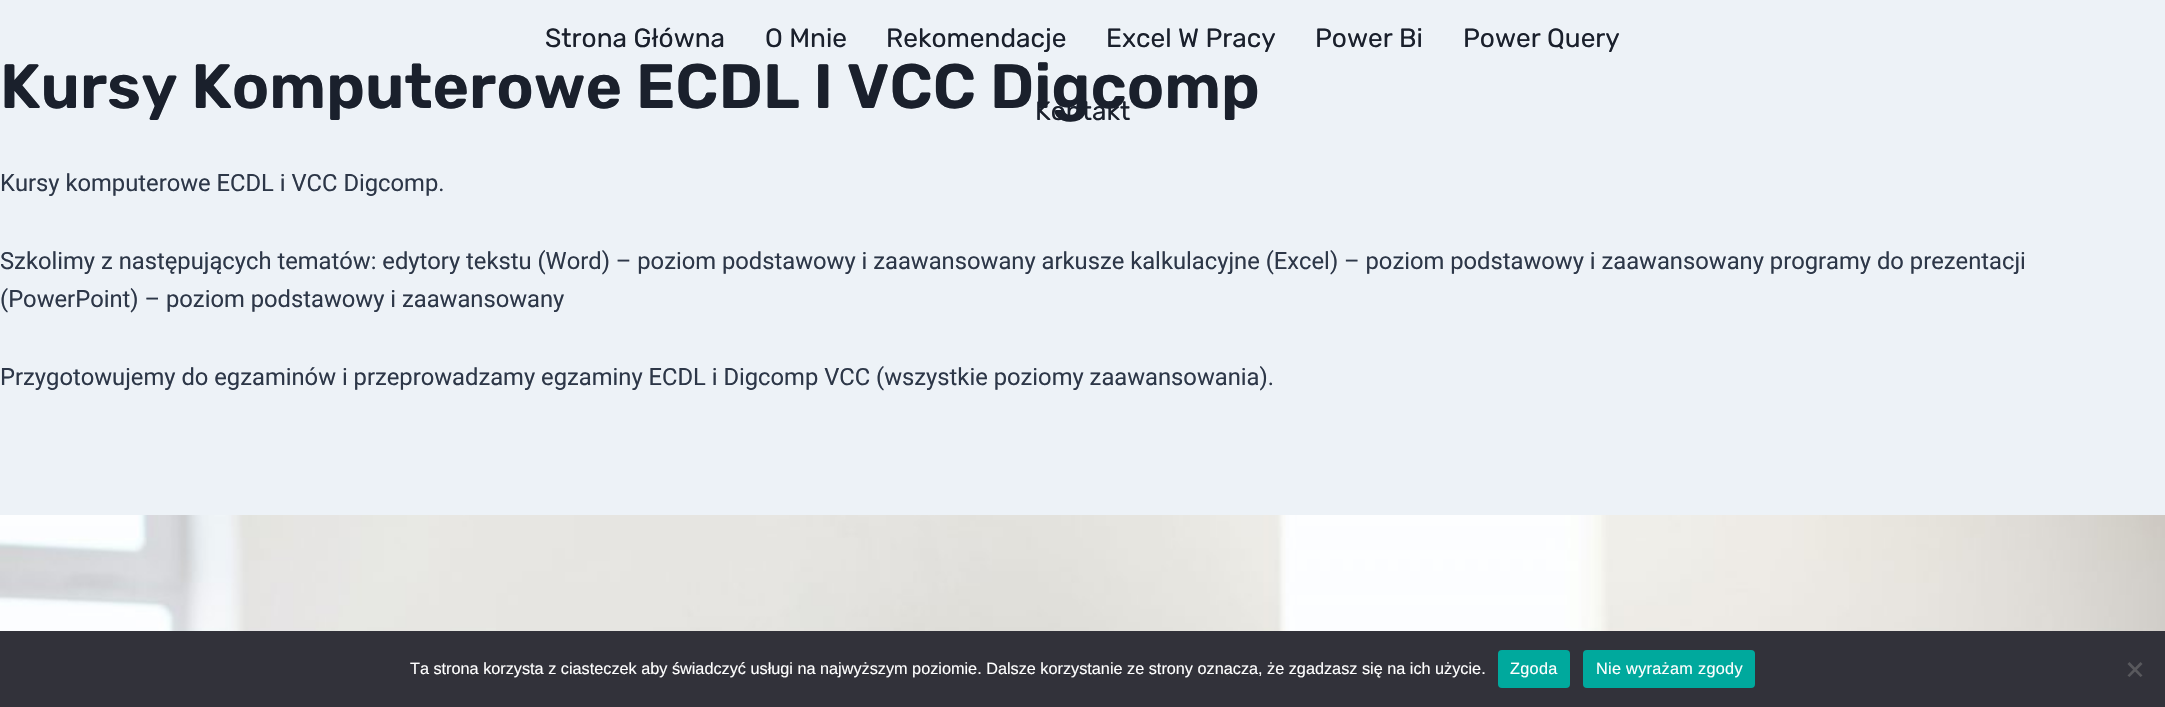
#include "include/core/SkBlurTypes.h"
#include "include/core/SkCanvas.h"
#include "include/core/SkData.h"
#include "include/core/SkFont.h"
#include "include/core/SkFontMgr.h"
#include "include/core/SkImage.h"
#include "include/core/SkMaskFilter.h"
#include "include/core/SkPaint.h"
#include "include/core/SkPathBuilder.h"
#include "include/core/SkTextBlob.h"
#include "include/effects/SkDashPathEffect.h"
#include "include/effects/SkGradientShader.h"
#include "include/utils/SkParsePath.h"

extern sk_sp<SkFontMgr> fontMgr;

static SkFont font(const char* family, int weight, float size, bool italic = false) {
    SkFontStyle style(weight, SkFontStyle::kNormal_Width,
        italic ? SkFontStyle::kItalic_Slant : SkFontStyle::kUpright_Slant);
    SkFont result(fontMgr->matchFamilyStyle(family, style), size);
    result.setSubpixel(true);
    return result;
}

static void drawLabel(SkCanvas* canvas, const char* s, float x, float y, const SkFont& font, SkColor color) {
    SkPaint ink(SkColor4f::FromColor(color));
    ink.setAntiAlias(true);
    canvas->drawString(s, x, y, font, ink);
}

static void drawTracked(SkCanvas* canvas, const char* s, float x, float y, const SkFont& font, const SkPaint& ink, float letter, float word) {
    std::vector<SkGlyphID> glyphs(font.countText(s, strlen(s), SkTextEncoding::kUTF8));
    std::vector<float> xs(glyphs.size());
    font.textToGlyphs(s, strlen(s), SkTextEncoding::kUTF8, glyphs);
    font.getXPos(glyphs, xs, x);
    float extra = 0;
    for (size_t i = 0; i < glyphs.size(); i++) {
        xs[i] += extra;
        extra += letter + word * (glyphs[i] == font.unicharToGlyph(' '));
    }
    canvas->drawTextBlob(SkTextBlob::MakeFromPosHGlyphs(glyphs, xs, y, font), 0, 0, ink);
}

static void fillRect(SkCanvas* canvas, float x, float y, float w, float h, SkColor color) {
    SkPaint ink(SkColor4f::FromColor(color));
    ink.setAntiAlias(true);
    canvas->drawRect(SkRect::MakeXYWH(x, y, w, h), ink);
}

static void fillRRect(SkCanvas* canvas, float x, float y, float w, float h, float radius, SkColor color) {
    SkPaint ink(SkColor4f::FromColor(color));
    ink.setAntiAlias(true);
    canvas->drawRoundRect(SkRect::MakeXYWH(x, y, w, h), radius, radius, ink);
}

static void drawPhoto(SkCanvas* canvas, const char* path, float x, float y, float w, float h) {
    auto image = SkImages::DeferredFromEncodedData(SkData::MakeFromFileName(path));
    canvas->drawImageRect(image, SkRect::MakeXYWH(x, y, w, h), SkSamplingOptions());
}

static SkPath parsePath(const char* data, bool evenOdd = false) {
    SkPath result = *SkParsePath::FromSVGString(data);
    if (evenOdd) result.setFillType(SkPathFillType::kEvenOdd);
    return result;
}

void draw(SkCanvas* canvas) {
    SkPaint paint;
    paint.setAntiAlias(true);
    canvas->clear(0xFFEDF2F7);
    SkFont font1 = font("Rubik", 400, 26.25f);
    drawLabel(canvas, "Strona Główna", 545, 47, font1, 0xFF1A202C);
    drawLabel(canvas, "O Mnie", 765, 47, font1, 0xFF1A202C);
    drawLabel(canvas, "Rekomendacje", 886, 47, font1, 0xFF1A202C);
    drawLabel(canvas, "Excel W Pracy", 1106, 47, font1, 0xFF1A202C);
    drawLabel(canvas, "Power Bi", 1315, 47, font1, 0xFF1A202C);
    drawLabel(canvas, "Power Query", 1463, 47, font1, 0xFF1A202C);
    SkFont font2 = font("Rubik", 600, 62.5f);
    drawLabel(canvas, "Kursy Komputerowe ECDL I VCC Digcomp", 0, 108, font2, 0xFF1A202C);
    drawLabel(canvas, "Kontakt", 1035, 120, font1, 0xFF1A202C);
    SkFont font3 = font("Roboto", 400, 23.75f);
    drawLabel(canvas, "Kursy komputerowe ECDL i VCC Digcomp.", 0, 191, font3, 0xFF2D3748);
    drawLabel(canvas, "Szkolimy z następujących tematów: edytory tekstu (Word) – poziom podstawowy i zaawansowany arkusze kalkulacyjne (Excel) – poziom podstawowy i zaawansowany programy do prezentacji", 0, 269, font3, 0xFF2D3748);
    drawLabel(canvas, "(PowerPoint) – poziom podstawowy i zaawansowany", 0, 307, font3, 0xFF2D3748);
    drawLabel(canvas, "Przygotowujemy do egzaminów i przeprowadzamy egzaminy ECDL i Digcomp VCC (wszystkie poziomy zaawansowania).", 0, 385, font3, 0xFF2D3748);
    drawPhoto(canvas, "assets/img1.png", 0, 515, 2165, 116);
    fillRect(canvas, 0, 631, 2165, 76, 0xFF32323A);
    SkFont font4 = font("Liberation Sans", 400, 16.25f);
    drawLabel(canvas, "Ta strona korzysta z ciasteczek aby świadczyć usługi na najwyższym poziomie. Dalsze korzystanie ze strony oznacza, że zgadzasz się na ich użycie.", 410, 674, font4, 0xFFFFFFFF);
    fillRRect(canvas, 1498, 650, 72, 38, 4, 0xFF00A99D);
    paint.setColor(0xFFFFFFFF);
    drawTracked(canvas, "Zgoda", 1510, 674, font4, paint, 0.3f, 0);
    fillRRect(canvas, 1583, 650, 172, 38, 4, 0xFF00A99D);
    drawTracked(canvas, "Nie wyrażam zgody", 1596, 674, font4, paint, 0.3f, 0);
    paint.setColor(0xFF59595D);
    canvas->drawPath(parsePath("M2140.5 662L2142.5 664L2129.5 677L2127.5 675.5Z"), paint);
    canvas->drawPath(parsePath("M2127.5 664L2129.5 662L2142.5 675.5L2140.5 677Z"), paint);
}
